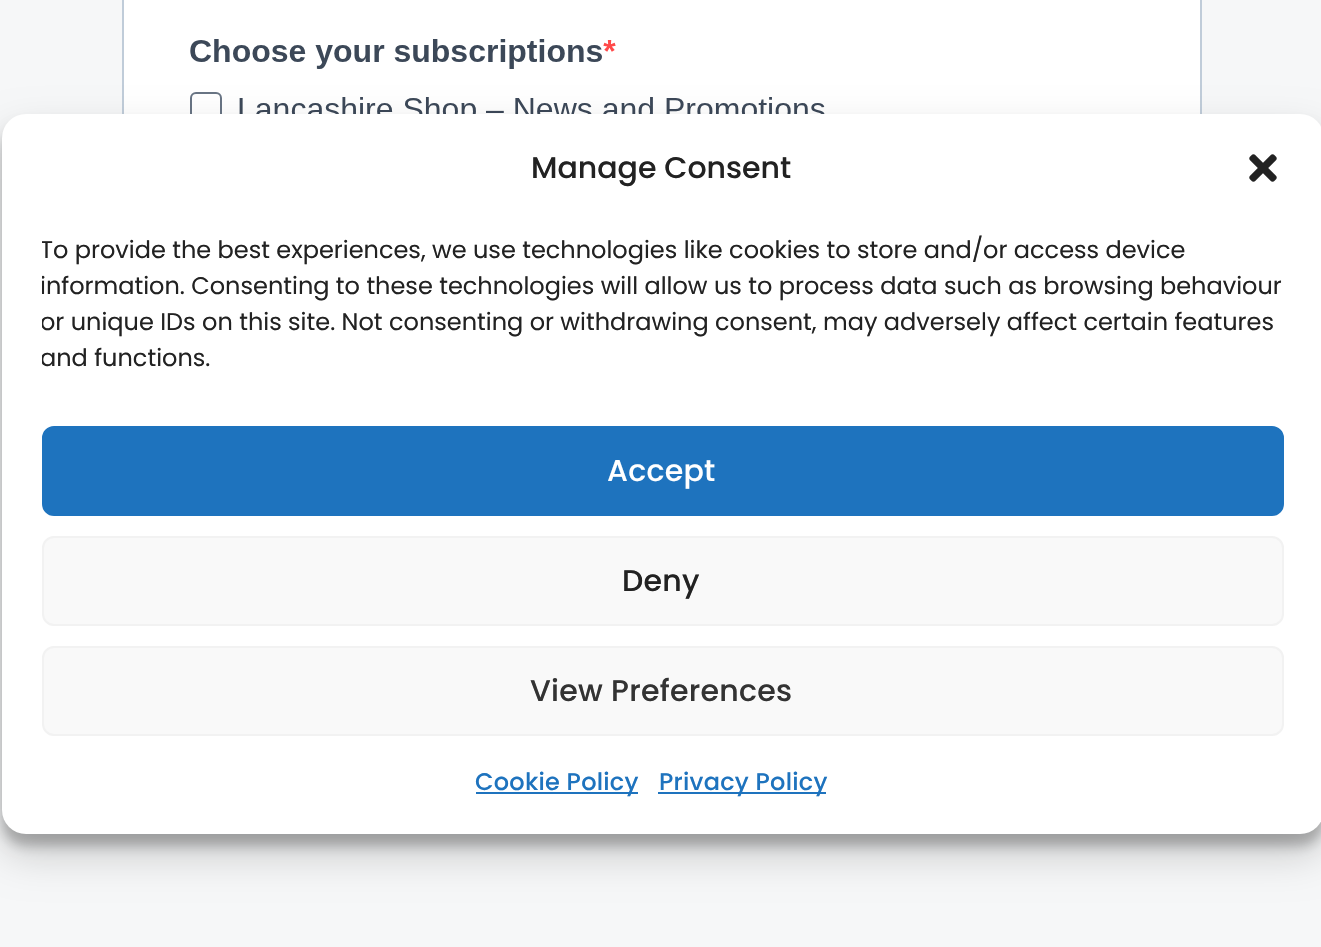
#include "include/core/SkBlurTypes.h"
#include "include/core/SkCanvas.h"
#include "include/core/SkData.h"
#include "include/core/SkFont.h"
#include "include/core/SkFontMgr.h"
#include "include/core/SkImage.h"
#include "include/core/SkMaskFilter.h"
#include "include/core/SkPaint.h"
#include "include/core/SkPathBuilder.h"
#include "include/core/SkTextBlob.h"
#include "include/effects/SkDashPathEffect.h"
#include "include/effects/SkGradientShader.h"
#include "include/utils/SkParsePath.h"

extern sk_sp<SkFontMgr> fontMgr;

static SkFont font(const char* family, int weight, float size, bool italic = false) {
    SkFontStyle style(weight, SkFontStyle::kNormal_Width,
        italic ? SkFontStyle::kItalic_Slant : SkFontStyle::kUpright_Slant);
    SkFont result(fontMgr->matchFamilyStyle(family, style), size);
    result.setSubpixel(true);
    return result;
}

static void drawLabel(SkCanvas* canvas, const char* s, float x, float y, const SkFont& font, SkColor color) {
    SkPaint ink(SkColor4f::FromColor(color));
    ink.setAntiAlias(true);
    canvas->drawString(s, x, y, font, ink);
}

static void drawTracked(SkCanvas* canvas, const char* s, float x, float y, const SkFont& font, const SkPaint& ink, float letter, float word) {
    std::vector<SkGlyphID> glyphs(font.countText(s, strlen(s), SkTextEncoding::kUTF8));
    std::vector<float> xs(glyphs.size());
    font.textToGlyphs(s, strlen(s), SkTextEncoding::kUTF8, glyphs);
    font.getXPos(glyphs, xs, x);
    float extra = 0;
    for (size_t i = 0; i < glyphs.size(); i++) {
        xs[i] += extra;
        extra += letter + word * (glyphs[i] == font.unicharToGlyph(' '));
    }
    canvas->drawTextBlob(SkTextBlob::MakeFromPosHGlyphs(glyphs, xs, y, font), 0, 0, ink);
}

static void fillRect(SkCanvas* canvas, float x, float y, float w, float h, SkColor color) {
    SkPaint ink(SkColor4f::FromColor(color));
    ink.setAntiAlias(true);
    canvas->drawRect(SkRect::MakeXYWH(x, y, w, h), ink);
}

static void fillRRect(SkCanvas* canvas, float x, float y, float w, float h, float radius, SkColor color) {
    SkPaint ink(SkColor4f::FromColor(color));
    ink.setAntiAlias(true);
    canvas->drawRoundRect(SkRect::MakeXYWH(x, y, w, h), radius, radius, ink);
}

static void drawPhoto(SkCanvas* canvas, const char* path, float x, float y, float w, float h) {
    auto image = SkImages::DeferredFromEncodedData(SkData::MakeFromFileName(path));
    canvas->drawImageRect(image, SkRect::MakeXYWH(x, y, w, h), SkSamplingOptions());
}

void draw(SkCanvas* canvas) {
    SkPaint paint;
    paint.setAntiAlias(true);
    canvas->clear(0xFFF6F7F8);
    drawPhoto(canvas, "assets/img1.png", 122, 0, 1080, 114);
    paint.setColor(0x3B000000);
    paint.setMaskFilter(SkMaskFilter::MakeBlur(kNormal_SkBlurStyle, 6));
    canvas->drawRoundRect(SkRect::MakeXYWH(2, 126, 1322, 720), 24, 24, paint);
    paint.setMaskFilter(nullptr);
    paint.setColor(0x30000000);
    paint.setMaskFilter(SkMaskFilter::MakeBlur(kNormal_SkBlurStyle, 20));
    canvas->drawRoundRect(SkRect::MakeXYWH(2, 134, 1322, 720), 24, 24, paint);
    paint.setMaskFilter(nullptr);
    fillRRect(canvas, 2, 114, 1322, 720, 24, 0xFFFFFFFF);
    SkFont font1 = font("Poppins", 500, 30);
    drawLabel(canvas, "Manage Consent", 531, 178, font1, 0xFF222222);
    drawPhoto(canvas, "assets/img2.png", 1249, 154, 28, 28);
    canvas->save();
    canvas->clipRect(SkRect::MakeXYWH(42, 232, 1242, 154));
    SkFont font2 = font("Poppins", 400, 24);
    drawLabel(canvas, "To provide the best experiences, we use technologies like cookies to store and/or access device", 40, 258, font2, 0xFF222222);
    drawLabel(canvas, "information. Consenting to these technologies will allow us to process data such as browsing behaviour", 40, 294, font2, 0xFF222222);
    drawLabel(canvas, "or unique IDs on this site. Not consenting or withdrawing consent, may adversely affect certain features", 40, 330, font2, 0xFF222222);
    drawLabel(canvas, "and functions.", 40, 366, font2, 0xFF222222);
    canvas->restore();
    paint.setColor(0xFF1E73BE);
    canvas->drawRoundRect(SkRect::MakeXYWH(43, 427, 1240, 88), 11, 11, paint);
    paint.setStroke(true);
    paint.setStrokeWidth(2);
    canvas->drawRoundRect(SkRect::MakeXYWH(43, 427, 1240, 88), 11, 11, paint);
    paint.setStroke(false);
    paint.setColor(0xFFFFFFFF);
    drawTracked(canvas, "Accept", 607, 481, font1, paint, 0.25f, 0);
    paint.setColor(0xFFF9F9F9);
    canvas->drawRoundRect(SkRect::MakeXYWH(43, 537, 1240, 88), 11, 11, paint);
    paint.setStroke(true);
    paint.setColor(0xFFF2F2F2);
    canvas->drawRoundRect(SkRect::MakeXYWH(43, 537, 1240, 88), 11, 11, paint);
    paint.setStroke(false);
    paint.setColor(0xFF222222);
    drawTracked(canvas, "Deny", 622, 591, font1, paint, 0.25f, 0);
    paint.setColor(0xFFF9F9F9);
    canvas->drawRoundRect(SkRect::MakeXYWH(43, 647, 1240, 88), 11, 11, paint);
    paint.setStroke(true);
    paint.setColor(0xFFF2F2F2);
    canvas->drawRoundRect(SkRect::MakeXYWH(43, 647, 1240, 88), 11, 11, paint);
    paint.setStroke(false);
    paint.setColor(0xFF333333);
    drawTracked(canvas, "View Preferences", 530, 701, font1, paint, 0.25f, 0);
    fillRect(canvas, 476, 792, 162, 2, 0xFF1E73BE);
    SkFont font3 = font("Poppins", 500, 24);
    paint.setColor(0xFF1E73BE);
    drawTracked(canvas, "Cookie Policy", 475, 790, font3, paint, 0.25f, 0);
    fillRect(canvas, 658, 792, 168, 2, 0xFF1E73BE);
    drawTracked(canvas, "Privacy Policy", 659, 790, font3, paint, 0.25f, 0);
}
